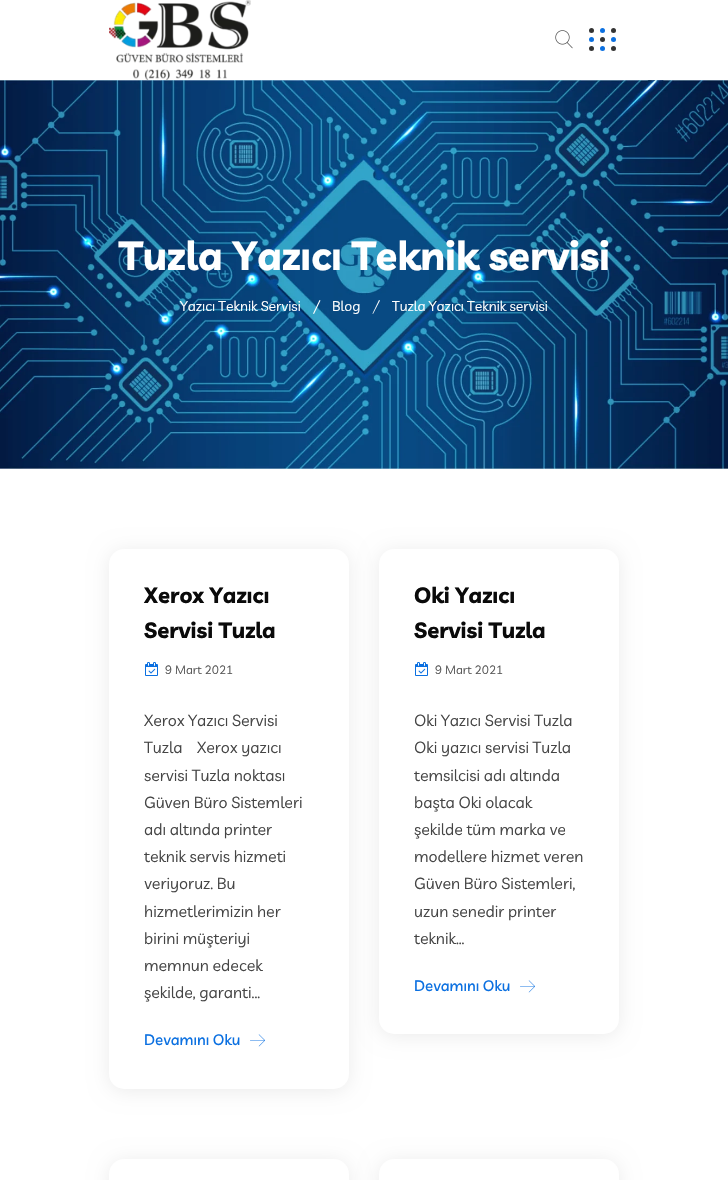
#include "include/core/SkBlurTypes.h"
#include "include/core/SkCanvas.h"
#include "include/core/SkData.h"
#include "include/core/SkFont.h"
#include "include/core/SkFontMgr.h"
#include "include/core/SkImage.h"
#include "include/core/SkMaskFilter.h"
#include "include/core/SkPaint.h"
#include "include/core/SkPathBuilder.h"
#include "include/core/SkTextBlob.h"
#include "include/effects/SkDashPathEffect.h"
#include "include/effects/SkGradientShader.h"
#include "include/utils/SkParsePath.h"

extern sk_sp<SkFontMgr> fontMgr;

static SkFont font(const char* family, int weight, float size, bool italic = false) {
    SkFontStyle style(weight, SkFontStyle::kNormal_Width,
        italic ? SkFontStyle::kItalic_Slant : SkFontStyle::kUpright_Slant);
    SkFont result(fontMgr->matchFamilyStyle(family, style), size);
    result.setSubpixel(true);
    return result;
}

static void drawLabel(SkCanvas* canvas, const char* s, float x, float y, const SkFont& font, SkColor color) {
    SkPaint ink(SkColor4f::FromColor(color));
    ink.setAntiAlias(true);
    canvas->drawString(s, x, y, font, ink);
}

static void fillRRect(SkCanvas* canvas, float x, float y, float w, float h, float radius, SkColor color) {
    SkPaint ink(SkColor4f::FromColor(color));
    ink.setAntiAlias(true);
    canvas->drawRoundRect(SkRect::MakeXYWH(x, y, w, h), radius, radius, ink);
}

static void drawPhoto(SkCanvas* canvas, const char* path, float x, float y, float w, float h) {
    auto image = SkImages::DeferredFromEncodedData(SkData::MakeFromFileName(path));
    canvas->drawImageRect(image, SkRect::MakeXYWH(x, y, w, h), SkSamplingOptions());
}

static SkPath parsePath(const char* data, bool evenOdd = false) {
    SkPath result = *SkParsePath::FromSVGString(data);
    if (evenOdd) result.setFillType(SkPathFillType::kEvenOdd);
    return result;
}

void draw(SkCanvas* canvas) {
    SkPaint paint;
    paint.setAntiAlias(true);
    canvas->clear(0xFFFFFFFF);
    drawPhoto(canvas, "assets/img1.png", 109, 0, 142, 80);
    drawPhoto(canvas, "assets/img2.png", 555, 30, 18, 19);
    paint.setColor(0xFF333333);
    canvas->drawCircle(591.5f, 30.5f, 2.5f, paint);
    paint.setColor(0xFF0B70E1);
    canvas->drawCircle(602.5f, 30.5f, 2.5f, paint);
    paint.setColor(0xFF333333);
    canvas->drawCircle(613.5f, 30.5f, 2.5f, paint);
    paint.setColor(0xFF0B70E1);
    canvas->drawCircle(591.5f, 39.5f, 2.5f, paint);
    paint.setColor(0xFF333333);
    canvas->drawCircle(602.5f, 39.5f, 2.5f, paint);
    paint.setColor(0xFF0B70E1);
    canvas->drawCircle(613.5f, 39.5f, 2.5f, paint);
    paint.setColor(0xFF333333);
    canvas->drawCircle(591.5f, 48.5f, 2.5f, paint);
    paint.setColor(0xFF0B70E1);
    canvas->drawCircle(602.5f, 48.5f, 2.5f, paint);
    paint.setColor(0xFF333333);
    canvas->drawCircle(613.5f, 48.5f, 2.5f, paint);
    drawPhoto(canvas, "assets/img3.png", 0, 80, 728, 389);
    SkFont font1 = font("Livvic", 700, 40);
    drawLabel(canvas, "Tuzla Yazıcı Teknik servisi", 119, 270, font1, 0xFFFFFFFF);
    SkFont font2 = font("Livvic", 400, 14);
    drawLabel(canvas, "Yazıcı Teknik Servisi", 180, 311, font2, 0xFFFFFFFF);
    paint.setColor(0xFFFFFFFF);
    canvas->drawPath(parsePath("M319.5 300L320.5 300.5L314 314L313 313.5Z"), paint);
    drawLabel(canvas, "Blog", 332, 311, font2, 0xFFFFFFFF);
    canvas->drawPath(parsePath("M379 300L380 300.5L373 314L372.5 313.5Z"), paint);
    drawLabel(canvas, "Tuzla Yazıcı Teknik servisi", 392, 311, font2, 0xFFFFFFFF);
    paint.setColor(0x14000000);
    paint.setMaskFilter(SkMaskFilter::MakeBlur(kNormal_SkBlurStyle, 10));
    canvas->drawRoundRect(SkRect::MakeXYWH(109, 551, 240, 540), 15, 15, paint);
    paint.setMaskFilter(nullptr);
    fillRRect(canvas, 109, 549, 240, 540, 15, 0xFFFFFFFF);
    SkFont font3 = font("Livvic", 700, 22);
    drawLabel(canvas, "Xerox Yazıcı", 144, 603, font3, 0xFF0A0A0A);
    drawLabel(canvas, "Servisi Tuzla", 144, 638, font3, 0xFF0A0A0A);
    drawPhoto(canvas, "assets/img4.png", 145, 662, 13, 14);
    SkFont font4 = font("Livvic", 400, 12);
    drawLabel(canvas, "9 Mart 2021", 165, 674, font4, 0xFF555555);
    SkFont font5 = font("Livvic", 400, 16);
    drawLabel(canvas, "Xerox Yazıcı Servisi", 144, 726, font5, 0xFF454545);
    drawLabel(canvas, "Tuzla    Xerox yazıcı", 144, 753, font5, 0xFF454545);
    drawLabel(canvas, "servisi Tuzla noktası", 144, 781, font5, 0xFF454545);
    drawLabel(canvas, "Güven Büro Sistemleri", 144, 808, font5, 0xFF454545);
    drawLabel(canvas, "adı altında printer", 144, 835, font5, 0xFF454545);
    drawLabel(canvas, "teknik servis hizmeti", 144, 862, font5, 0xFF454545);
    drawLabel(canvas, "veriyoruz. Bu", 144, 889, font5, 0xFF454545);
    drawLabel(canvas, "hizmetlerimizin her", 144, 917, font5, 0xFF454545);
    drawLabel(canvas, "birini müşteriyi", 144, 944, font5, 0xFF454545);
    drawLabel(canvas, "memnun edecek", 144, 971, font5, 0xFF454545);
    drawLabel(canvas, "şekilde, garanti...", 144, 998, font5, 0xFF454545);
    SkFont font6 = font("Livvic", 500, 15);
    drawLabel(canvas, "Devamını Oku", 144, 1045, font6, 0xFF0B70E1);
    drawPhoto(canvas, "assets/img5.png", 250, 1034, 15, 13);
    paint.setMaskFilter(SkMaskFilter::MakeBlur(kNormal_SkBlurStyle, 10));
    canvas->drawRoundRect(SkRect::MakeXYWH(379, 551, 240, 485), 15, 15, paint);
    paint.setMaskFilter(nullptr);
    fillRRect(canvas, 379, 549, 240, 485, 15, 0xFFFFFFFF);
    drawLabel(canvas, "Oki Yazıcı", 414, 603, font3, 0xFF0A0A0A);
    drawLabel(canvas, "Servisi Tuzla", 414, 638, font3, 0xFF0A0A0A);
    drawPhoto(canvas, "assets/img4.png", 415, 662, 13, 14);
    drawLabel(canvas, "9 Mart 2021", 435, 674, font4, 0xFF555555);
    drawLabel(canvas, "Oki Yazıcı Servisi Tuzla", 414, 726, font5, 0xFF454545);
    drawLabel(canvas, "Oki yazıcı servisi Tuzla", 414, 753, font5, 0xFF454545);
    drawLabel(canvas, "temsilcisi adı altında", 414, 781, font5, 0xFF454545);
    drawLabel(canvas, "başta Oki olacak", 414, 808, font5, 0xFF454545);
    drawLabel(canvas, "şekilde tüm marka ve", 414, 835, font5, 0xFF454545);
    drawLabel(canvas, "modellere hizmet veren", 414, 862, font5, 0xFF454545);
    drawLabel(canvas, "Güven Büro Sistemleri,", 414, 889, font5, 0xFF454545);
    drawLabel(canvas, "uzun senedir printer", 414, 917, font5, 0xFF454545);
    drawLabel(canvas, "teknik...", 414, 944, font5, 0xFF454545);
    drawLabel(canvas, "Devamını Oku", 414, 991, font6, 0xFF0B70E1);
    drawPhoto(canvas, "assets/img5.png", 520, 980, 15, 13);
    paint.setMaskFilter(SkMaskFilter::MakeBlur(kNormal_SkBlurStyle, 10));
    canvas->drawRoundRect(SkRect::MakeXYWH(109, 1161, 240, 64), 15, 15, paint);
    paint.setMaskFilter(nullptr);
    fillRRect(canvas, 109, 1159, 240, 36, 15, 0xFFFFFFFF);
    paint.setMaskFilter(SkMaskFilter::MakeBlur(kNormal_SkBlurStyle, 10));
    canvas->drawRoundRect(SkRect::MakeXYWH(379, 1161, 240, 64), 15, 15, paint);
    paint.setMaskFilter(nullptr);
    fillRRect(canvas, 379, 1159, 240, 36, 15, 0xFFFFFFFF);
}
